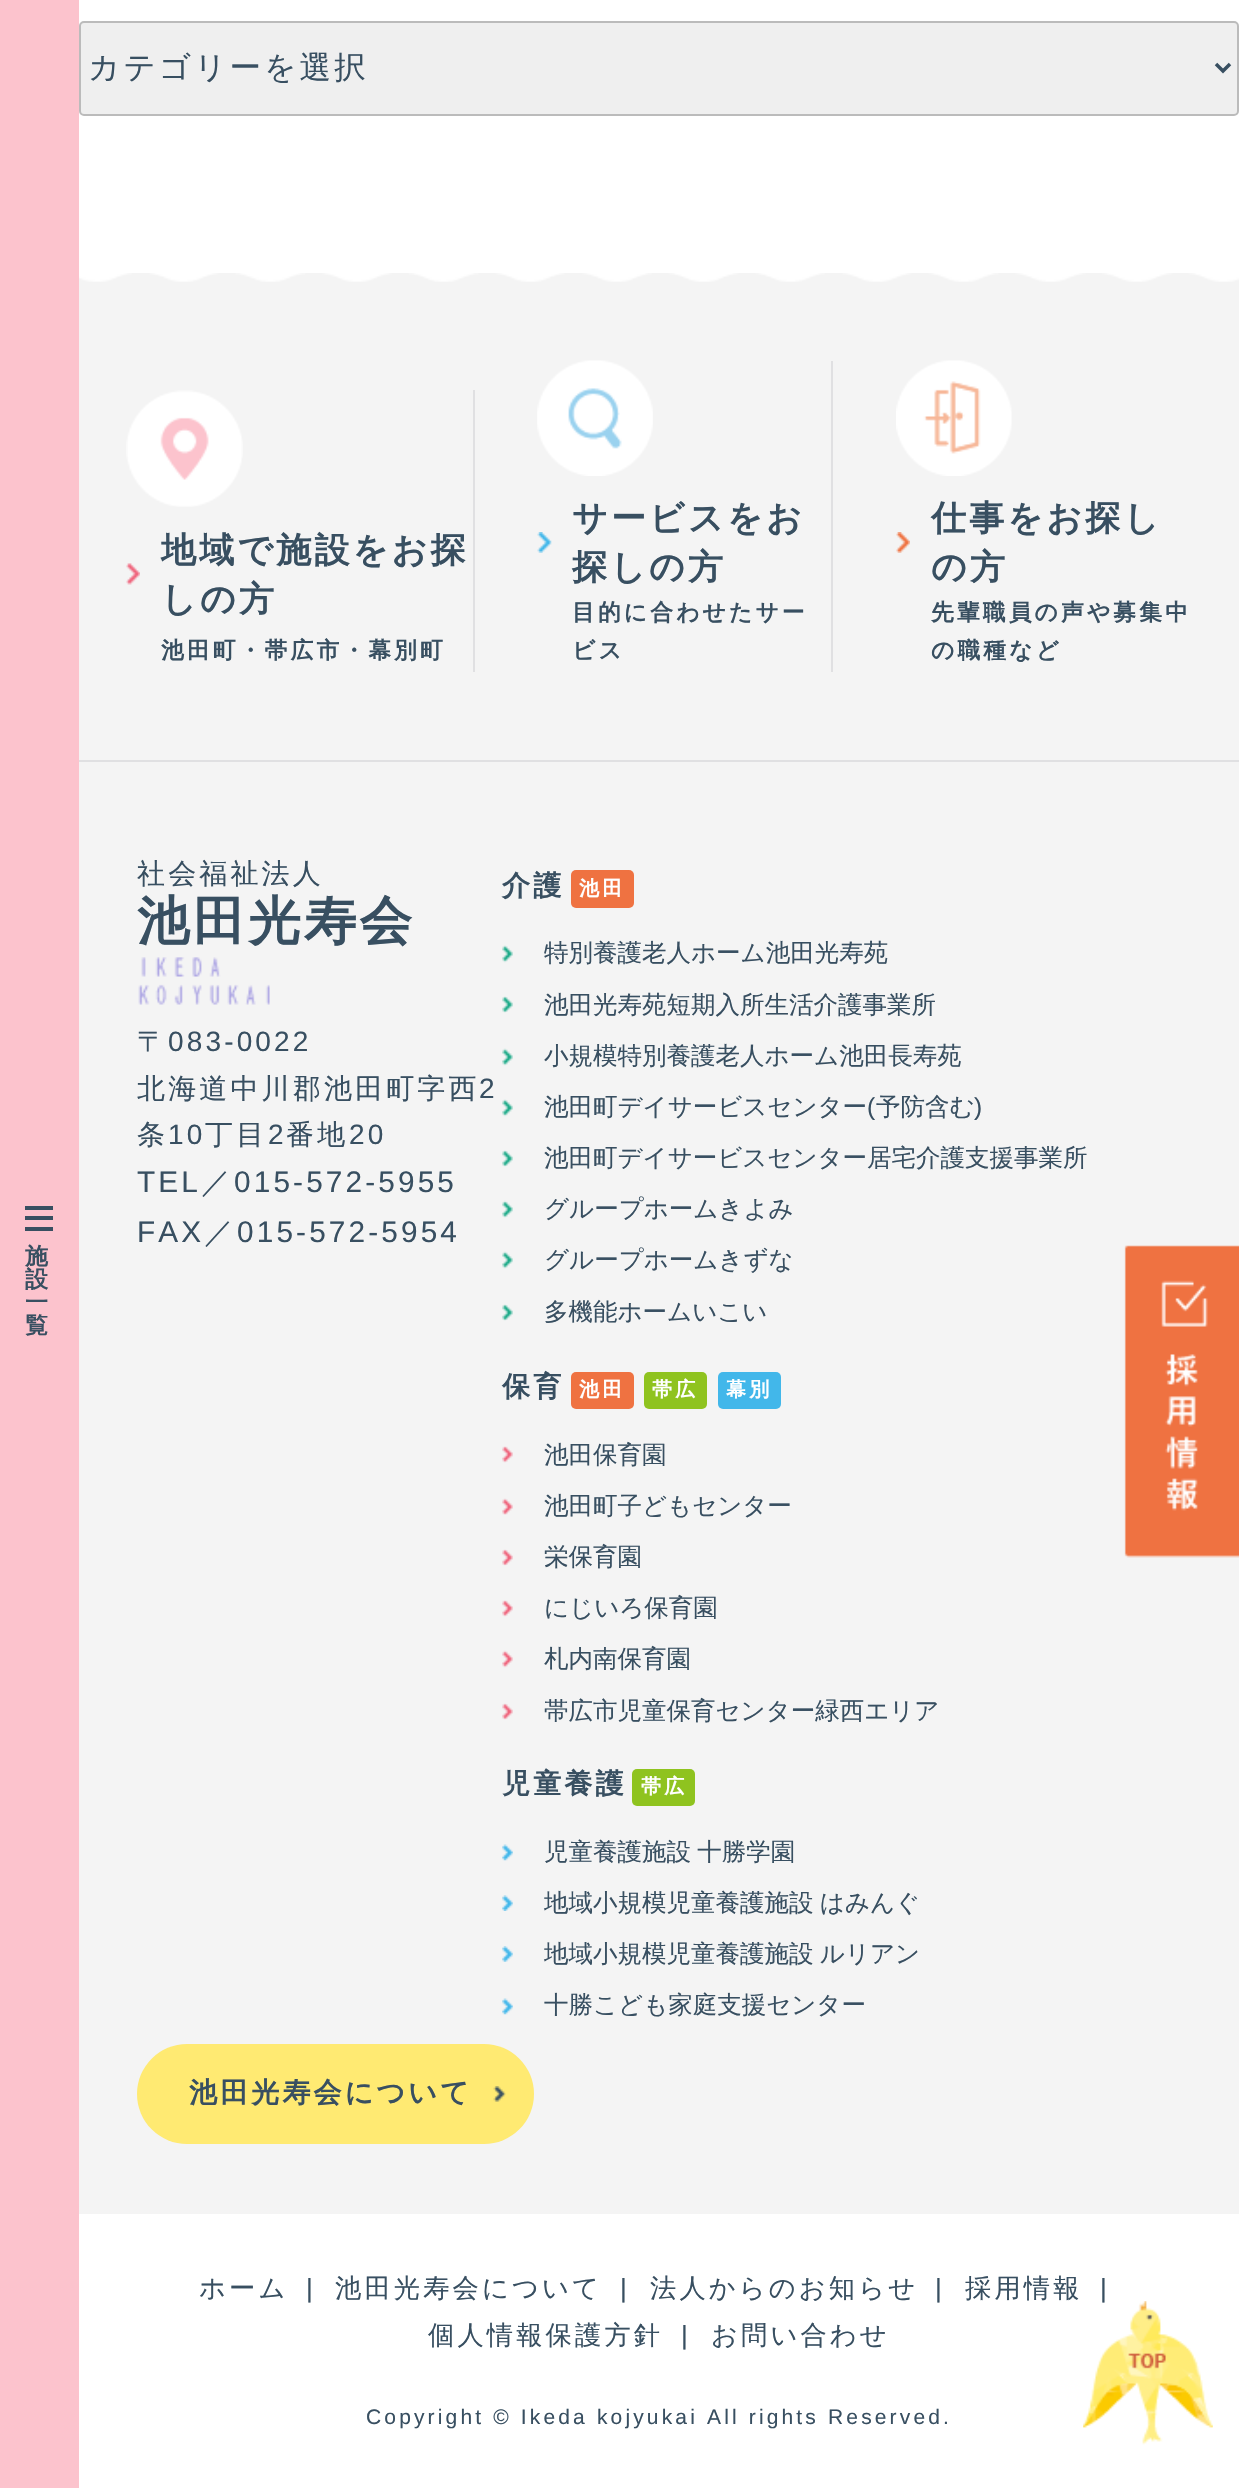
#include "include/core/SkBlurTypes.h"
#include "include/core/SkCanvas.h"
#include "include/core/SkData.h"
#include "include/core/SkFont.h"
#include "include/core/SkFontMgr.h"
#include "include/core/SkImage.h"
#include "include/core/SkMaskFilter.h"
#include "include/core/SkPaint.h"
#include "include/core/SkPathBuilder.h"
#include "include/core/SkTextBlob.h"
#include "include/effects/SkDashPathEffect.h"
#include "include/effects/SkGradientShader.h"
#include "include/utils/SkParsePath.h"

extern sk_sp<SkFontMgr> fontMgr;

static SkFont font(const char* family, int weight, float size, bool italic = false) {
    SkFontStyle style(weight, SkFontStyle::kNormal_Width,
        italic ? SkFontStyle::kItalic_Slant : SkFontStyle::kUpright_Slant);
    SkFont result(fontMgr->matchFamilyStyle(family, style), size);
    result.setSubpixel(true);
    return result;
}

static void drawLabel(SkCanvas* canvas, const char* s, float x, float y, const SkFont& font, SkColor color) {
    SkPaint ink(SkColor4f::FromColor(color));
    ink.setAntiAlias(true);
    canvas->drawString(s, x, y, font, ink);
}

static void drawTracked(SkCanvas* canvas, const char* s, float x, float y, const SkFont& font, const SkPaint& ink, float letter, float word) {
    std::vector<SkGlyphID> glyphs(font.countText(s, strlen(s), SkTextEncoding::kUTF8));
    std::vector<float> xs(glyphs.size());
    font.textToGlyphs(s, strlen(s), SkTextEncoding::kUTF8, glyphs);
    font.getXPos(glyphs, xs, x);
    float extra = 0;
    for (size_t i = 0; i < glyphs.size(); i++) {
        xs[i] += extra;
        extra += letter + word * (glyphs[i] == font.unicharToGlyph(' '));
    }
    canvas->drawTextBlob(SkTextBlob::MakeFromPosHGlyphs(glyphs, xs, y, font), 0, 0, ink);
}

static void fillRect(SkCanvas* canvas, float x, float y, float w, float h, SkColor color) {
    SkPaint ink(SkColor4f::FromColor(color));
    ink.setAntiAlias(true);
    canvas->drawRect(SkRect::MakeXYWH(x, y, w, h), ink);
}

static void fillRRect(SkCanvas* canvas, float x, float y, float w, float h, float radius, SkColor color) {
    SkPaint ink(SkColor4f::FromColor(color));
    ink.setAntiAlias(true);
    canvas->drawRoundRect(SkRect::MakeXYWH(x, y, w, h), radius, radius, ink);
}

static void drawPhoto(SkCanvas* canvas, const char* path, float x, float y, float w, float h) {
    auto image = SkImages::DeferredFromEncodedData(SkData::MakeFromFileName(path));
    canvas->drawImageRect(image, SkRect::MakeXYWH(x, y, w, h), SkSamplingOptions());
}

static SkPath parsePath(const char* data, bool evenOdd = false) {
    SkPath result = *SkParsePath::FromSVGString(data);
    if (evenOdd) result.setFillType(SkPathFillType::kEvenOdd);
    return result;
}

void draw(SkCanvas* canvas) {
    SkPaint paint;
    paint.setAntiAlias(true);
    canvas->clear(0xFFFFFFFF);
    fillRect(canvas, 0, 0, 79, 2488, 0xFFFCC3CD);
    fillRect(canvas, 25, 1216, 28, 4, 0xFF384F61);
    fillRect(canvas, 25, 1206, 28, 4, 0xFF384F61);
    fillRect(canvas, 25, 1227, 28, 4, 0xFF384F61);
    SkFont font1 = font("WenQuanYi Zen Hei", 700, 23);
    paint.setColor(0xFF384F61);
    drawTracked(canvas, "施", 25, 1264, font1, paint, 5, 0);
    drawTracked(canvas, "設", 25, 1287, font1, paint, 5, 0);
    drawTracked(canvas, "一", 25, 1310, font1, paint, 5, 0);
    drawTracked(canvas, "覧", 25, 1333, font1, paint, 5, 0);
    paint.setColor(0xFFEFEFEF);
    canvas->drawRoundRect(SkRect::MakeXYWH(80, 22, 1158, 93), 4, 4, paint);
    paint.setStroke(true);
    paint.setStrokeWidth(2);
    paint.setColor(0xFFBBBBBB);
    canvas->drawRoundRect(SkRect::MakeXYWH(80, 22, 1158, 93), 4, 4, paint);
    paint.setStrokeWidth(3.5f);
    paint.setColor(0xFF384F61);
    canvas->drawPath(parsePath("M1216 64L1223 71L1230 64"), paint);
    SkFont font2 = font("WenQuanYi Zen Hei", 500, 31.5f);
    paint.setStroke(false);
    drawTracked(canvas, "カテゴリーを選択", 88, 78, font2, paint, 3.15f, 0);
    fillRect(canvas, 79, 282, 1160, 1932, 0xFFF4F4F4);
    drawPhoto(canvas, "assets/img1.png", 79, 273, 1160, 9);
    fillRect(canvas, 79, 760, 1160, 2, 0xFFE0E0E2);
    fillRect(canvas, 473, 390, 2, 282, 0xFFE0E0E2);
    drawPhoto(canvas, "assets/img2.png", 126, 390, 117, 117);
    drawPhoto(canvas, "assets/img3.png", 126, 563, 14, 22);
    SkFont font3 = font("WenQuanYi Zen Hei", 700, 35);
    drawTracked(canvas, "地域で施設をお探", 161, 562, font3, paint, 3.15f, 0);
    drawTracked(canvas, "しの方", 161, 611, font3, paint, 3.15f, 0);
    SkFont font4 = font("WenQuanYi Zen Hei", 700, 22.75f);
    drawTracked(canvas, "池田町・帯広市・幕別町", 161, 658, font4, paint, 3.15f, 0);
    fillRect(canvas, 831, 361, 2, 311, 0xFFE0E0E2);
    drawPhoto(canvas, "assets/img4.png", 537, 360, 116, 116);
    drawPhoto(canvas, "assets/img5.png", 537, 532, 15, 21);
    drawTracked(canvas, "サービスをお", 572, 530, font3, paint, 3.15f, 0);
    drawTracked(canvas, "探しの方", 572, 579, font3, paint, 3.15f, 0);
    drawTracked(canvas, "目的に合わせたサー", 572, 620, font4, paint, 3.15f, 0);
    drawTracked(canvas, "ビス", 572, 658, font4, paint, 3.15f, 0);
    drawPhoto(canvas, "assets/img6.png", 896, 360, 116, 116);
    drawPhoto(canvas, "assets/img7.png", 896, 532, 14, 21);
    drawTracked(canvas, "仕事をお探し", 931, 530, font3, paint, 3.15f, 0);
    drawTracked(canvas, "の方", 931, 579, font3, paint, 3.15f, 0);
    drawTracked(canvas, "先輩職員の声や募集中", 931, 620, font4, paint, 3.15f, 0);
    drawTracked(canvas, "の職種など", 931, 658, font4, paint, 3.15f, 0);
    SkFont font5 = font("WenQuanYi Zen Hei", 500, 28);
    drawTracked(canvas, "社会福祉法人", 137, 883, font5, paint, 3.15f, 0);
    SkFont font6 = font("WenQuanYi Zen Hei", 700, 52.5f);
    drawTracked(canvas, "池田光寿会", 137, 939, font6, paint, 3.15f, 0);
    drawPhoto(canvas, "assets/img8.png", 138, 957, 132, 48);
    drawTracked(canvas, "〒", 137, 1051, font5, paint, 3.15f, 0);
    SkFont font7 = font("Liberation Sans", 400, 28);
    drawTracked(canvas, "083-0022", 168, 1051, font7, paint, 3.15f, 0);
    drawTracked(canvas, "北海道中川郡池田町字西", 137, 1098, font5, paint, 3.15f, 0);
    drawTracked(canvas, "2", 479, 1098, font7, paint, 3.15f, 0);
    drawTracked(canvas, "条", 137, 1144, font5, paint, 3.15f, 0);
    drawTracked(canvas, "10", 168, 1144, font7, paint, 3.15f, 0);
    drawTracked(canvas, "丁目", 205, 1144, font5, paint, 3.15f, 0);
    drawTracked(canvas, "2", 268, 1144, font7, paint, 3.15f, 0);
    drawTracked(canvas, "番地", 286, 1144, font5, paint, 3.15f, 0);
    drawTracked(canvas, "20", 349, 1144, font7, paint, 3.15f, 0);
    SkFont font8 = font("Liberation Sans", 400, 29.75f);
    drawTracked(canvas, "TEL", 137, 1192, font8, paint, 3.15f, 0);
    SkFont font9 = font("WenQuanYi Zen Hei", 500, 29.75f);
    drawTracked(canvas, "／", 201, 1192, font9, paint, 3.15f, 0);
    drawTracked(canvas, "015-572-5955", 234, 1192, font8, paint, 3.15f, 0);
    drawTracked(canvas, "FAX", 137, 1242, font8, paint, 3.15f, 0);
    drawTracked(canvas, "／", 204, 1242, font9, paint, 3.15f, 0);
    drawTracked(canvas, "015-572-5954", 237, 1242, font8, paint, 3.15f, 0);
    fillRRect(canvas, 137, 2044, 397, 100, 50, 0xFFFFEA72);
    drawPhoto(canvas, "assets/img9.png", 493, 2086, 13, 16);
    SkFont font10 = font("WenQuanYi Zen Hei", 700, 28);
    drawTracked(canvas, "池田光寿会について", 189, 2102, font10, paint, 3.15f, 0);
    drawTracked(canvas, "介護", 502, 895, font10, paint, 3.15f, 0);
    fillRRect(canvas, 571, 870, 63, 38, 5, 0xFFEF7241);
    SkFont font11 = font("WenQuanYi Zen Hei", 700, 20);
    paint.setColor(0xFFFFFFFF);
    drawTracked(canvas, "池田", 579, 895, font11, paint, 3.15f, 0);
    drawPhoto(canvas, "assets/img10.png", 502, 945, 11, 18);
    SkFont font12 = font("WenQuanYi Zen Hei", 500, 24.5f);
    drawLabel(canvas, "特別養護老人ホーム池田光寿苑", 544, 961, font12, 0xFF384F61);
    drawPhoto(canvas, "assets/img11.png", 502, 996, 11, 17);
    drawLabel(canvas, "池田光寿苑短期入所生活介護事業所", 544, 1013, font12, 0xFF384F61);
    drawPhoto(canvas, "assets/img12.png", 502, 1048, 11, 18);
    drawLabel(canvas, "小規模特別養護老人ホーム池田長寿苑", 544, 1064, font12, 0xFF384F61);
    drawPhoto(canvas, "assets/img10.png", 502, 1099, 11, 18);
    drawLabel(canvas, "池田町デイサービスセンター", 544, 1115, font12, 0xFF384F61);
    SkFont font13 = font("Liberation Sans", 400, 24.5f);
    drawLabel(canvas, "(", 867, 1115, font13, 0xFF384F61);
    drawLabel(canvas, "予防含む", 876, 1115, font12, 0xFF384F61);
    drawLabel(canvas, ")", 974, 1115, font13, 0xFF384F61);
    drawPhoto(canvas, "assets/img11.png", 502, 1150, 11, 17);
    drawLabel(canvas, "池田町デイサービスセンター居宅介護支援事業所", 544, 1166, font12, 0xFF384F61);
    drawPhoto(canvas, "assets/img13.png", 502, 1200, 11, 18);
    drawLabel(canvas, "グループホームきよみ", 544, 1217, font12, 0xFF384F61);
    drawPhoto(canvas, "assets/img12.png", 502, 1251, 11, 18);
    drawLabel(canvas, "グループホームきずな", 544, 1268, font12, 0xFF384F61);
    drawPhoto(canvas, "assets/img11.png", 502, 1304, 11, 17);
    drawLabel(canvas, "多機能ホームいこい", 544, 1320, font12, 0xFF384F61);
    paint.setColor(0xFF384F61);
    drawTracked(canvas, "保育", 502, 1396, font10, paint, 3.15f, 0);
    fillRRect(canvas, 571, 1372, 63, 37, 5, 0xFFEF7241);
    paint.setColor(0xFFFFFFFF);
    drawTracked(canvas, "池田", 579, 1396, font11, paint, 3.15f, 0);
    fillRRect(canvas, 644, 1372, 63, 37, 5, 0xFF8FC31F);
    drawTracked(canvas, "帯広", 652, 1396, font11, paint, 3.15f, 0);
    fillRRect(canvas, 718, 1372, 63, 37, 5, 0xFF42B7EA);
    drawTracked(canvas, "幕別", 726, 1396, font11, paint, 3.15f, 0);
    drawPhoto(canvas, "assets/img14.png", 502, 1446, 11, 17);
    drawLabel(canvas, "池田保育園", 544, 1463, font12, 0xFF384F61);
    drawPhoto(canvas, "assets/img15.png", 502, 1498, 11, 17);
    drawLabel(canvas, "池田町子どもセンター", 544, 1514, font12, 0xFF384F61);
    drawPhoto(canvas, "assets/img16.png", 502, 1549, 11, 17);
    drawLabel(canvas, "栄保育園", 544, 1565, font12, 0xFF384F61);
    drawPhoto(canvas, "assets/img17.png", 502, 1600, 11, 17);
    drawLabel(canvas, "にじいろ保育園", 544, 1616, font12, 0xFF384F61);
    drawPhoto(canvas, "assets/img18.png", 502, 1650, 11, 18);
    drawLabel(canvas, "札内南保育園", 544, 1667, font12, 0xFF384F61);
    drawPhoto(canvas, "assets/img19.png", 502, 1703, 11, 17);
    drawLabel(canvas, "帯広市児童保育センター緑西エリア", 544, 1719, font12, 0xFF384F61);
    paint.setColor(0xFF384F61);
    drawTracked(canvas, "児童養護", 502, 1793, font10, paint, 3.15f, 0);
    fillRRect(canvas, 632, 1769, 63, 37, 5, 0xFF8FC31F);
    paint.setColor(0xFFFFFFFF);
    drawTracked(canvas, "帯広", 641, 1793, font11, paint, 3.15f, 0);
    drawPhoto(canvas, "assets/img20.png", 502, 1844, 11, 17);
    paint.setColor(0xFF384F61);
    drawTracked(canvas, "児童養護施設 十勝学園", 544, 1860, font12, paint, 0, -1);
    drawPhoto(canvas, "assets/img21.png", 502, 1895, 11, 16);
    drawTracked(canvas, "地域小規模児童養護施設 はみんぐ", 544, 1911, font12, paint, 0, -1);
    drawPhoto(canvas, "assets/img22.png", 502, 1946, 11, 16);
    drawTracked(canvas, "地域小規模児童養護施設 ルリアン", 544, 1962, font12, paint, 0, -1);
    drawPhoto(canvas, "assets/img20.png", 502, 1998, 11, 17);
    drawLabel(canvas, "十勝こども家庭支援センター", 544, 2013, font12, 0xFF384F61);
    SkFont font14 = font("WenQuanYi Zen Hei", 500, 26.25f);
    drawTracked(canvas, "ホーム", 199, 2297, font14, paint, 3.15f, 0);
    SkFont font15 = font("Liberation Sans", 400, 26.25f);
    drawTracked(canvas, "|", 306, 2297, font15, paint, 3.15f, 0);
    drawTracked(canvas, "池田光寿会について", 335, 2297, font14, paint, 3.15f, 0);
    drawTracked(canvas, "|", 620, 2297, font15, paint, 3.15f, 0);
    drawTracked(canvas, "法人からのお知らせ", 650, 2297, font14, paint, 3.15f, 0);
    drawTracked(canvas, "|", 935, 2297, font15, paint, 3.15f, 0);
    drawTracked(canvas, "採用情報", 965, 2297, font14, paint, 3.15f, 0);
    drawTracked(canvas, "|", 1100, 2297, font15, paint, 3.15f, 0);
    drawTracked(canvas, "個人情報保護方針", 428, 2344, font14, paint, 3.15f, 0);
    drawTracked(canvas, "|", 681, 2344, font15, paint, 3.15f, 0);
    drawTracked(canvas, "お問い合わせ", 711, 2344, font14, paint, 3.15f, 0);
    SkFont font16 = font("Liberation Sans", 400, 21);
    drawTracked(canvas, "Copyright © Ikeda kojyukai All rights Reserved.", 366, 2424, font16, paint, 3.15f, 0);
    drawPhoto(canvas, "assets/img23.png", 1124, 1245, 115, 313);
    drawPhoto(canvas, "assets/img24.png", 1083, 2301, 130, 144);
}
